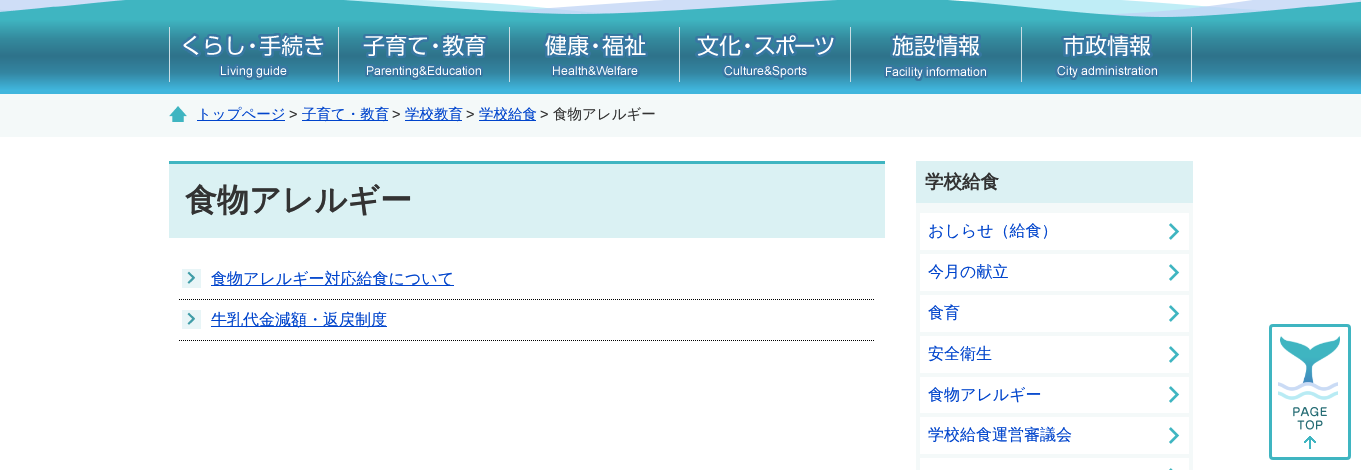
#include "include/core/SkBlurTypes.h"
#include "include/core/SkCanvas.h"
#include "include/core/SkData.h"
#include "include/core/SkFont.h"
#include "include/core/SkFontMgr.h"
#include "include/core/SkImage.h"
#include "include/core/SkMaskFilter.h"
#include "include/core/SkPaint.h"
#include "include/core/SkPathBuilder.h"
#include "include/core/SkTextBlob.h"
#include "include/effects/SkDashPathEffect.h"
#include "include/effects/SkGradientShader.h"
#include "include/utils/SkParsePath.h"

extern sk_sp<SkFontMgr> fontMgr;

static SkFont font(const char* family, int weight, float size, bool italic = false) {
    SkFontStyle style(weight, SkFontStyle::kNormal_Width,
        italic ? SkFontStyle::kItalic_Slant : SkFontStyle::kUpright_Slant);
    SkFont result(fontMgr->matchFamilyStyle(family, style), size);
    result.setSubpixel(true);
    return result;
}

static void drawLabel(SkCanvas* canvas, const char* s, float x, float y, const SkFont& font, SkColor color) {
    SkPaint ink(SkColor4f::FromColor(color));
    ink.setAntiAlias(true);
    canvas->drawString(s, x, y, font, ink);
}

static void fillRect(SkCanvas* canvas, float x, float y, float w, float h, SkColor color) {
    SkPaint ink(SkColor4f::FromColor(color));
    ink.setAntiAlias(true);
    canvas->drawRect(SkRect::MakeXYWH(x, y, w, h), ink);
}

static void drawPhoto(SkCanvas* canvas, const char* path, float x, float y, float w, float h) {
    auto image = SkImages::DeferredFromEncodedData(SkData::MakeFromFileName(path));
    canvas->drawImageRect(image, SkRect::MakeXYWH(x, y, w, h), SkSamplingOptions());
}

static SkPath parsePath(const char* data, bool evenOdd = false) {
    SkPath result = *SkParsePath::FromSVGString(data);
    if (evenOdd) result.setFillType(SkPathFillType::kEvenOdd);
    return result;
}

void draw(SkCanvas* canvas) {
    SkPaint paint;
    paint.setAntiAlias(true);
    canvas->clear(0xFFFFFFFF);
    drawPhoto(canvas, "assets/img1.png", 0, 0, 1361, 94);
    fillRect(canvas, 169, 27, 1, 55, 0xFFCBDDE4);
    drawPhoto(canvas, "assets/img2.png", 181, 33, 145, 25);
    fillRect(canvas, 338, 27, 1, 55, 0xFFCBDDE4);
    drawPhoto(canvas, "assets/img3.png", 219, 64, 70, 16);
    drawPhoto(canvas, "assets/img4.png", 361, 33, 127, 25);
    fillRect(canvas, 509, 27, 1, 55, 0xFFCBDDE4);
    drawPhoto(canvas, "assets/img5.png", 365, 64, 118, 16);
    drawPhoto(canvas, "assets/img6.png", 543, 33, 105, 25);
    fillRect(canvas, 679, 27, 1, 55, 0xFFCBDDE4);
    drawPhoto(canvas, "assets/img7.png", 551, 64, 89, 13);
    drawPhoto(canvas, "assets/img8.png", 695, 33, 141, 25);
    fillRect(canvas, 850, 27, 1, 55, 0xFFCBDDE4);
    drawPhoto(canvas, "assets/img9.png", 722, 64, 87, 16);
    drawPhoto(canvas, "assets/img10.png", 890, 33, 92, 26);
    fillRect(canvas, 1021, 27, 1, 55, 0xFFCBDDE4);
    drawPhoto(canvas, "assets/img11.png", 884, 65, 104, 16);
    drawPhoto(canvas, "assets/img12.png", 1061, 33, 92, 25);
    fillRect(canvas, 1191, 27, 1, 55, 0xFFCBDDE4);
    drawPhoto(canvas, "assets/img13.png", 1055, 64, 104, 16);
    fillRect(canvas, 0, 94, 1361, 43, 0xFFF4F9F9);
    drawPhoto(canvas, "assets/img14.png", 169, 106, 18, 16);
    fillRect(canvas, 197, 120, 88, 1, 0xFF0044CC);
    SkFont font1 = font("WenQuanYi Zen Hei", 500, 14.5f);
    drawLabel(canvas, "トップページ", 197, 119, font1, 0xFF0044CC);
    SkFont font2 = font("Liberation Sans", 400, 14.5f);
    drawLabel(canvas, ">", 289, 119, font2, 0xFF333333);
    fillRect(canvas, 302, 120, 86, 1, 0xFF0044CC);
    drawLabel(canvas, "子育て・教育", 302, 119, font1, 0xFF0044CC);
    drawLabel(canvas, ">", 392, 119, font2, 0xFF333333);
    fillRect(canvas, 405, 120, 57, 1, 0xFF0044CC);
    drawLabel(canvas, "学校教育", 405, 119, font1, 0xFF0044CC);
    drawLabel(canvas, ">", 466, 119, font2, 0xFF333333);
    fillRect(canvas, 479, 120, 57, 1, 0xFF0044CC);
    drawLabel(canvas, "学校給食", 479, 119, font1, 0xFF0044CC);
    drawLabel(canvas, ">", 540, 119, font2, 0xFF333333);
    drawLabel(canvas, "食物アレルギー", 553, 119, font1, 0xFF333333);
    fillRect(canvas, 169, 164, 716, 74, 0xFFDAF1F3);
    fillRect(canvas, 169, 161, 716, 3, 0xFF3FB5C1);
    SkFont font3 = font("WenQuanYi Zen Hei", 700, 32);
    drawLabel(canvas, "食物アレルギー", 185, 211, font3, 0xFF333333);
    paint.setStroke(true);
    paint.setStrokeWidth(1);
    paint.setColor(0xFF000000);
    paint.setPathEffect(SkDashPathEffect::Make({{1, 1}}, 0));
    canvas->drawPath(parsePath("M179 299.5H875"), paint);
    paint.setPathEffect(nullptr);
    fillRect(canvas, 182, 269, 19, 19, 0xFFE8F5F7);
    drawPhoto(canvas, "assets/img15.png", 187, 271, 8, 13);
    fillRect(canvas, 211, 285, 243, 1, 0xFF0044CC);
    SkFont font4 = font("WenQuanYi Zen Hei", 500, 16);
    drawLabel(canvas, "食物アレルギー対応給食について", 211, 284, font4, 0xFF0044CC);
    paint.setPathEffect(SkDashPathEffect::Make({{1, 1}}, 0));
    canvas->drawPath(parsePath("M179 340.5H875"), paint);
    paint.setPathEffect(nullptr);
    fillRect(canvas, 182, 310, 19, 19, 0xFFE8F5F7);
    drawPhoto(canvas, "assets/img15.png", 187, 312, 8, 13);
    fillRect(canvas, 211, 326, 176, 1, 0xFF0044CC);
    drawLabel(canvas, "牛乳代金減額・返戻制度", 211, 325, font4, 0xFF0044CC);
    fillRect(canvas, 916, 161, 277, 42, 0xFFDCF1F3);
    SkFont font5 = font("WenQuanYi Zen Hei", 700, 18.5f);
    drawLabel(canvas, "学校給食", 925, 188, font5, 0xFF333333);
    fillRect(canvas, 916, 203, 277, 267, 0xFFF4F9F9);
    fillRect(canvas, 920, 213, 269, 37, 0xFFFFFFFF);
    drawPhoto(canvas, "assets/img16.png", 1169, 223, 11, 17);
    drawLabel(canvas, "おしらせ（給食）", 928, 236, font4, 0xFF0044CC);
    fillRect(canvas, 920, 254, 269, 37, 0xFFFFFFFF);
    drawPhoto(canvas, "assets/img16.png", 1169, 264, 11, 17);
    drawLabel(canvas, "今月の献立", 928, 277, font4, 0xFF0044CC);
    fillRect(canvas, 920, 295, 269, 37, 0xFFFFFFFF);
    drawPhoto(canvas, "assets/img16.png", 1169, 305, 11, 17);
    drawLabel(canvas, "食育", 928, 318, font4, 0xFF0044CC);
    fillRect(canvas, 920, 336, 269, 37, 0xFFFFFFFF);
    drawPhoto(canvas, "assets/img16.png", 1169, 346, 11, 17);
    drawLabel(canvas, "安全衛生", 928, 359, font4, 0xFF0044CC);
    fillRect(canvas, 920, 377, 269, 36, 0xFFFFFFFF);
    drawPhoto(canvas, "assets/img16.png", 1169, 386, 11, 17);
    drawLabel(canvas, "食物アレルギー", 928, 400, font4, 0xFF0044CC);
    fillRect(canvas, 920, 417, 269, 37, 0xFFFFFFFF);
    drawPhoto(canvas, "assets/img16.png", 1169, 427, 11, 17);
    drawLabel(canvas, "学校給食運営審議会", 928, 440, font4, 0xFF0044CC);
    fillRect(canvas, 920, 458, 269, 12, 0xFFFFFFFF);
    drawPhoto(canvas, "assets/img17.png", 1169, 468, 4, 2);
    paint.setStrokeWidth(3);
    paint.setColor(0xFF3FB5C1);
    canvas->drawRoundRect(SkRect::MakeXYWH(1270.5f, 325.5f, 79, 133), 2.5f, 2.5f, paint);
    drawPhoto(canvas, "assets/img19.png", 1280, 335, 60, 49);
    drawPhoto(canvas, "assets/img18.png", 1278, 382, 60, 67);
}
